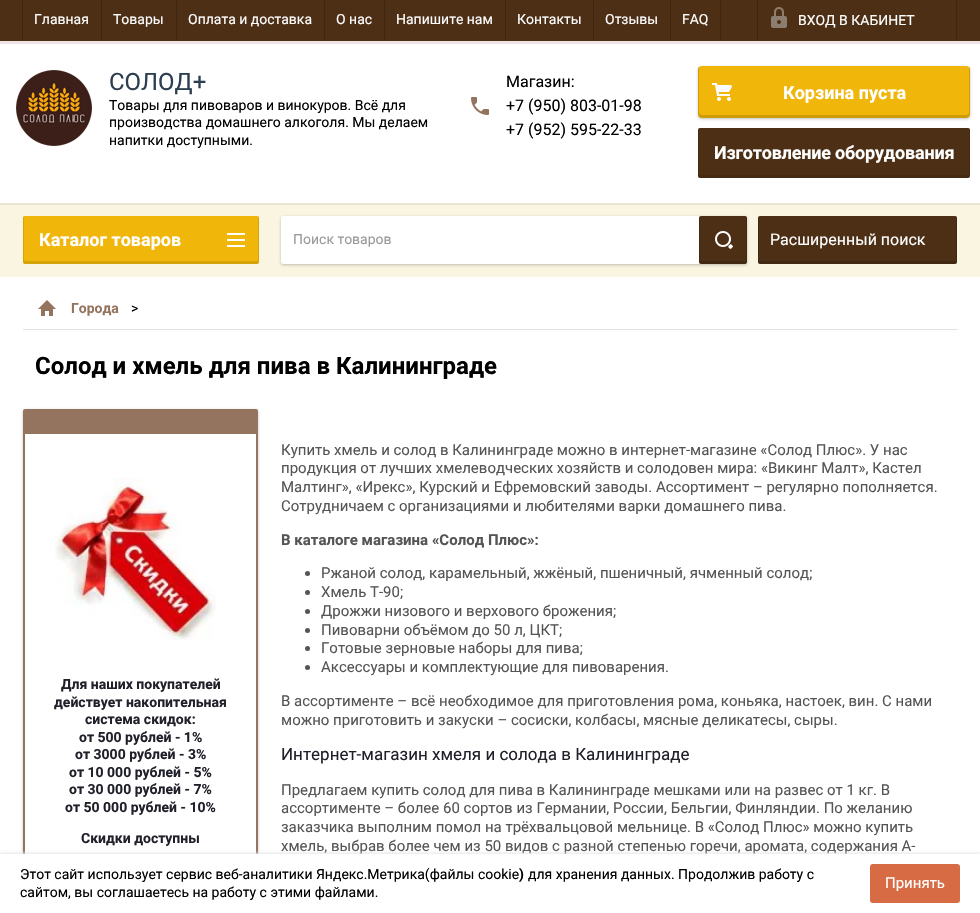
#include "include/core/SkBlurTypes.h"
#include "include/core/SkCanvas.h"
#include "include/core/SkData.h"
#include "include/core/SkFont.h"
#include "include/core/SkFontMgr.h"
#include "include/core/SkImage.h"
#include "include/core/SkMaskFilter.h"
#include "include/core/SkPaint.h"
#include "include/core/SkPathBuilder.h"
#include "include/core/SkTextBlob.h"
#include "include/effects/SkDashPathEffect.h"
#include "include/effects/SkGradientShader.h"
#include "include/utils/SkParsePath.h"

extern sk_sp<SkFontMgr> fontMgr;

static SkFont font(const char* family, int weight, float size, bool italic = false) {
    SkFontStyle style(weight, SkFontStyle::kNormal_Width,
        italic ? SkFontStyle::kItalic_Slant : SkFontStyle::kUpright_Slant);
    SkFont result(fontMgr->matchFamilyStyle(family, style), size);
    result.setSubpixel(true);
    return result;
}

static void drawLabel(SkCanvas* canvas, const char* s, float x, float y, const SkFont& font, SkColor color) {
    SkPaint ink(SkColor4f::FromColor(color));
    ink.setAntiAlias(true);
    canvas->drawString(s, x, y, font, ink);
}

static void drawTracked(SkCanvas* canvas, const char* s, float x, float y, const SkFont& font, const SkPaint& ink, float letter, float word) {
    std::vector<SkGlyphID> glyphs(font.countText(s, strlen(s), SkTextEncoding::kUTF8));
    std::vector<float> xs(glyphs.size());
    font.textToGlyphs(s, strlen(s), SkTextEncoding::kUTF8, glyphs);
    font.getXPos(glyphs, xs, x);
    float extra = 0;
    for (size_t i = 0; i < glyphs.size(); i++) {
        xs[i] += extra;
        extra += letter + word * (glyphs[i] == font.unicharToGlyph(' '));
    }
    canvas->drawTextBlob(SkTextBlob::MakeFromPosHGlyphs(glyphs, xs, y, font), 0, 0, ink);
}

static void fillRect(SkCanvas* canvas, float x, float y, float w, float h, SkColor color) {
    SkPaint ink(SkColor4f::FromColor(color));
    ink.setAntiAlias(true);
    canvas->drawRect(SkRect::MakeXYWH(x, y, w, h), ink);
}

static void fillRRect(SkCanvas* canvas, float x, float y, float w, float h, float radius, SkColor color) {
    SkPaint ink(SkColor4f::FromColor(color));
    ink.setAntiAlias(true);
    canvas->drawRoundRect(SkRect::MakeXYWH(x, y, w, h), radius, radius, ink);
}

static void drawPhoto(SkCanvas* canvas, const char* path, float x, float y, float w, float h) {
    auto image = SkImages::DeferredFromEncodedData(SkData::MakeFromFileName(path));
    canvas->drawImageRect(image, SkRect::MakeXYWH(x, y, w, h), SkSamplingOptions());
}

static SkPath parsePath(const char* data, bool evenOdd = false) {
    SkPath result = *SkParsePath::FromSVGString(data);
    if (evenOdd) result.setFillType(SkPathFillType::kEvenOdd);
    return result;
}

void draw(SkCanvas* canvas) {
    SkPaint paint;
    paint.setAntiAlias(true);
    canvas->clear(0xFFFFFFFF);
    fillRect(canvas, 0, 41, 980, 3, 0xFFEFE3E3);
    fillRect(canvas, 0, 0, 980, 41, 0xFF4D2F16);
    fillRect(canvas, 22, 0, 1, 41, 0xFF3E2612);
    SkFont font1 = font("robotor", 400, 14);
    drawLabel(canvas, "Главная", 34, 24, font1, 0xFFFFFFFF);
    fillRect(canvas, 101, 0, 1, 41, 0xFF3E2612);
    drawLabel(canvas, "Товары", 113, 24, font1, 0xFFFFFFFF);
    fillRect(canvas, 176, 0, 1, 41, 0xFF3E2612);
    drawLabel(canvas, "Оплата и доставка", 188, 24, font1, 0xFFFFFFFF);
    fillRect(canvas, 324, 0, 1, 41, 0xFF3E2612);
    drawLabel(canvas, "О нас", 336, 24, font1, 0xFFFFFFFF);
    fillRect(canvas, 384, 0, 1, 41, 0xFF3E2612);
    drawLabel(canvas, "Напишите нам", 396, 24, font1, 0xFFFFFFFF);
    fillRect(canvas, 505, 0, 1, 41, 0xFF3E2612);
    drawLabel(canvas, "Контакты", 517, 24, font1, 0xFFFFFFFF);
    fillRect(canvas, 593, 0, 1, 41, 0xFF3E2612);
    drawLabel(canvas, "Отзывы", 605, 24, font1, 0xFFFFFFFF);
    fillRect(canvas, 670, 0, 1, 41, 0xFF3E2612);
    drawLabel(canvas, "FAQ", 682, 24, font1, 0xFFFFFFFF);
    fillRect(canvas, 720, 0, 1, 41, 0xFF3E2612);
    fillRect(canvas, 757, 0, 1, 40, 0xFF3E2612);
    drawPhoto(canvas, "assets/img1.png", 771, 7, 16, 21);
    drawLabel(canvas, "ВХОД В КАБИНЕТ", 798, 25, font1, 0xFFFFFFFF);
    fillRect(canvas, 956, 0, 1, 40, 0xFF3E2612);
    drawPhoto(canvas, "assets/img2.png", 16, 70, 76, 76);
    SkFont font2 = font("robotor", 400, 24);
    drawLabel(canvas, "СОЛОД+", 109, 90, font2, 0xFF2C3E50);
    drawLabel(canvas, "Товары для пивоваров и винокуров. Всё для", 109, 110, font1, 0xFF000000);
    drawLabel(canvas, "производства домашнего алкоголя. Мы делаем", 109, 127, font1, 0xFF000000);
    drawLabel(canvas, "напитки доступными.", 109, 145, font1, 0xFF000000);
    SkFont font3 = font("robotor", 400, 16);
    drawLabel(canvas, "Магазин:", 506, 87, font3, 0xFF000000);
    drawPhoto(canvas, "assets/img3.png", 471, 97, 18, 18);
    drawLabel(canvas, "+7 (950) 803-01-98", 506, 111, font3, 0xFF000000);
    drawLabel(canvas, "+7 (952) 595-22-33", 506, 135, font3, 0xFF000000);
    paint.setColor(0x3D000000);
    paint.setMaskFilter(SkMaskFilter::MakeBlur(kNormal_SkBlurStyle, 1.5f));
    canvas->drawRoundRect(SkRect::MakeXYWH(698, 67, 272, 52), 4, 4, paint);
    paint.setMaskFilter(nullptr);
    fillRRect(canvas, 698, 66, 272, 52, 4, 0xFFF0B609);
    paint.setColor(0x24000000);
    canvas->drawPath(parsePath("M699 67C698 68 698 69 698 70V114C698 116 700 118 702 118H966C968 118 970 116 970 114V70C970 69 970 68 969 67V112C969 114 968 115 966 115H702C700 115 699 114 699 112Z"), paint);
    drawPhoto(canvas, "assets/img4.png", 712, 83, 20, 18);
    SkFont font4 = font("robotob", 700, 18);
    drawLabel(canvas, "Корзина пуста", 783, 99, font4, 0xFFFFFFFF);
    fillRRect(canvas, 698, 128, 272, 50, 2, 0xFF4D2F16);
    paint.setColor(0x1C000000);
    canvas->drawPath(parsePath("M699 128C698 129 698 129 698 130V176C698 177 699 178 700 178H968C969 178 970 177 970 176V130C970 129 970 129 969 128V174C969 175 969 175 968 175H700C699 175 699 175 699 174Z"), paint);
    paint.setColor(0xFFFFFFFF);
    drawTracked(canvas, "Изготовление оборудования", 714, 159, font4, paint, -0.2f, 0);
    fillRect(canvas, 0, 205, 980, 72, 0xFFFAF5E1);
    fillRect(canvas, 0, 203, 980, 2, 0xFFEBE6D4);
    paint.setColor(0x3D000000);
    paint.setMaskFilter(SkMaskFilter::MakeBlur(kNormal_SkBlurStyle, 1.5f));
    canvas->drawRoundRect(SkRect::MakeXYWH(281, 217, 466, 48), 2, 2, paint);
    paint.setMaskFilter(nullptr);
    fillRRect(canvas, 281, 216, 466, 48, 2, 0xFFFFFFFF);
    drawLabel(canvas, "Поиск товаров", 293, 244, font1, 0xFF999999);
    fillRRect(canvas, 699, 216, 48, 48, 2, 0xFF4D2F16);
    paint.setColor(0x29000000);
    canvas->drawPath(parsePath("M700 216C699 217 699 217 699 218V262C699 263 700 264 701 264H745C746 264 747 263 747 262V218C747 217 747 217 746 216V260C746 261 746 261 745 261H701C700 261 700 261 700 260Z"), paint);
    drawPhoto(canvas, "assets/img5.png", 715, 231, 18, 18);
    fillRRect(canvas, 758, 216, 199, 48, 2, 0xFF4D2F16);
    canvas->drawPath(parsePath("M759 216C758 217 758 217 758 218V262C758 263 759 264 760 264H955C956 264 957 263 957 262V218C957 217 957 217 956 216V260C956 261 956 261 955 261H760C759 261 759 261 759 260Z"), paint);
    drawLabel(canvas, "Расширенный поиск", 770, 245, font3, 0xFFFFFFFF);
    fillRect(canvas, 23, 329, 935, 1, 0xFFE1E2E3);
    drawPhoto(canvas, "assets/img6.png", 38, 300, 18, 16);
    SkFont font5 = font("robotob", 700, 14);
    drawLabel(canvas, "Города", 71, 313, font5, 0xFF94745F);
    drawLabel(canvas, ">", 131, 313, font1, 0xFF000000);
    SkFont font6 = font("robotob", 700, 24);
    drawLabel(canvas, "Солод и хмель для пива в Калининграде", 35, 374, font6, 0xFF000000);
    SkFont font7 = font("robotor", 400, 15);
    drawLabel(canvas, "Купить хмель и солод в Калининграде можно в интернет-магазине «Солод Плюс». У нас", 281, 455, font7, 0xFF555555);
    drawLabel(canvas, "продукция от лучших хмелеводческих хозяйств и солодовен мира: «Викинг Малт», Кастел", 281, 473, font7, 0xFF555555);
    drawLabel(canvas, "Малтинг», «Ирекс», Курский и Ефремовский заводы. Ассортимент – регулярно пополняется.", 281, 492, font7, 0xFF555555);
    drawLabel(canvas, "Сотрудничаем с организациями и любителями варки домашнего пива.", 281, 511, font7, 0xFF555555);
    SkFont font8 = font("robotob", 700, 15);
    drawLabel(canvas, "В каталоге магазина «Солод Плюс»:", 281, 545, font8, 0xFF555555);
    paint.setColor(0xFF555555);
    canvas->drawCircle(307.5f, 573.5f, 2.5f, paint);
    drawLabel(canvas, "Ржаной солод, карамельный, жжёный, пшеничный, ячменный солод;", 321, 578, font7, 0xFF555555);
    canvas->drawCircle(307.5f, 592.5f, 2.5f, paint);
    drawLabel(canvas, "Хмель Т-90;", 321, 597, font7, 0xFF555555);
    canvas->drawCircle(307.5f, 611.5f, 2.5f, paint);
    drawLabel(canvas, "Дрожжи низового и верхового брожения;", 321, 616, font7, 0xFF555555);
    canvas->drawCircle(307.5f, 630.5f, 2.5f, paint);
    drawLabel(canvas, "Пивоварни объёмом до 50 л, ЦКТ;", 321, 635, font7, 0xFF555555);
    canvas->drawCircle(307.5f, 648.5f, 2.5f, paint);
    drawLabel(canvas, "Готовые зерновые наборы для пива;", 321, 653, font7, 0xFF555555);
    canvas->drawCircle(307.5f, 667.5f, 2.5f, paint);
    drawLabel(canvas, "Аксессуары и комплектующие для пивоварения.", 321, 672, font7, 0xFF555555);
    drawLabel(canvas, "В ассортименте – всё необходимое для приготовления рома, коньяка, настоек, вин. С нами", 281, 706, font7, 0xFF555555);
    drawLabel(canvas, "можно приготовить и закуски – сосиски, колбасы, мясные деликатесы, сыры.", 281, 725, font7, 0xFF555555);
    SkFont font9 = font("robotor", 400, 17);
    drawLabel(canvas, "Интернет-магазин хмеля и солода в Калининграде", 281, 760, font9, 0xFF20202A);
    drawLabel(canvas, "Предлагаем купить солод для пива в Калининграде мешками или на развес от 1 кг. В", 281, 795, font7, 0xFF555555);
    drawLabel(canvas, "ассортименте – более 60 сортов из Германии, России, Бельгии, Финляндии. По желанию", 281, 813, font7, 0xFF555555);
    drawLabel(canvas, "заказчика выполним помол на трёхвальцовой мельнице. В «Солод Плюс» можно купить", 281, 832, font7, 0xFF555555);
    drawLabel(canvas, "хмель, выбрав более чем из 50 видов с разной степенью горечи, аромата, содержания А-", 281, 851, font7, 0xFF555555);
    fillRRect(canvas, 23, 216, 236, 48, 2, 0xFFF0B609);
    paint.setColor(0x1C000000);
    canvas->drawPath(parsePath("M24 216C23 217 23 217 23 218V262C23 263 24 264 25 264H257C258 264 259 263 259 262V218C259 217 259 217 258 216V260C258 261 258 261 257 261H25C24 261 24 261 24 260Z"), paint);
    drawLabel(canvas, "Каталог товаров", 39, 246, font4, 0xFFFFFFFF);
    drawPhoto(canvas, "assets/img7.png", 227, 233, 18, 14);
    paint.setColor(0x3D000000);
    paint.setMaskFilter(SkMaskFilter::MakeBlur(kNormal_SkBlurStyle, 1.5f));
    canvas->drawRoundRect(SkRect::MakeXYWH(23, 410, 235, 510), 2, 2, paint);
    paint.setMaskFilter(nullptr);
    fillRRect(canvas, 23, 409, 235, 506, 2, 0xFF94745F);
    fillRect(canvas, 25, 434, 231, 420, 0xFFFFFFFF);
    drawPhoto(canvas, "assets/img8.png", 55, 478, 161, 162);
    drawLabel(canvas, "Для наших покупателей", 61, 689, font5, 0xFF20202A);
    drawLabel(canvas, "действует накопительная", 54, 707, font5, 0xFF20202A);
    drawLabel(canvas, "система скидок:", 85, 724, font5, 0xFF20202A);
    drawLabel(canvas, "от 500 рублей - 1%", 79, 742, font5, 0xFF20202A);
    drawLabel(canvas, "от 3000 рублей - 3%", 75, 759, font5, 0xFF20202A);
    drawLabel(canvas, "от 10 000 рублей - 5%", 69, 777, font5, 0xFF20202A);
    drawLabel(canvas, "от 30 000 рублей - 7%", 69, 794, font5, 0xFF20202A);
    drawLabel(canvas, "от 50 000 рублей - 10%", 65, 812, font5, 0xFF20202A);
    drawLabel(canvas, "Скидки доступны", 81, 843, font5, 0xFF20202A);
    paint.setColor(0xFFE6E5E5);
    paint.setMaskFilter(SkMaskFilter::MakeBlur(kNormal_SkBlurStyle, 1.5f));
    canvas->drawRect(SkRect::MakeXYWH(0, 853, 980, 59), paint);
    paint.setMaskFilter(nullptr);
    fillRect(canvas, 0, 854, 980, 59, 0xFFFFFFFF);
    drawLabel(canvas, "Этот сайт использует сервис веб-аналитики Яндекс.Метрика(файлы cookie", 20, 879, font1, 0xFF000000);
    drawLabel(canvas, ")", 519, 879, font5, 0xFF000000);
    drawLabel(canvas, "для хранения данных. Продолжив работу с", 528, 879, font1, 0xFF000000);
    drawLabel(canvas, "сайтом, вы соглашаетесь на работу с этими файлами.", 20, 897, font1, 0xFF000000);
    fillRRect(canvas, 870, 864, 90, 39, 3, 0xFFD76B44);
    drawLabel(canvas, "Принять", 885, 888, font7, 0xFFFFFFFF);
}
